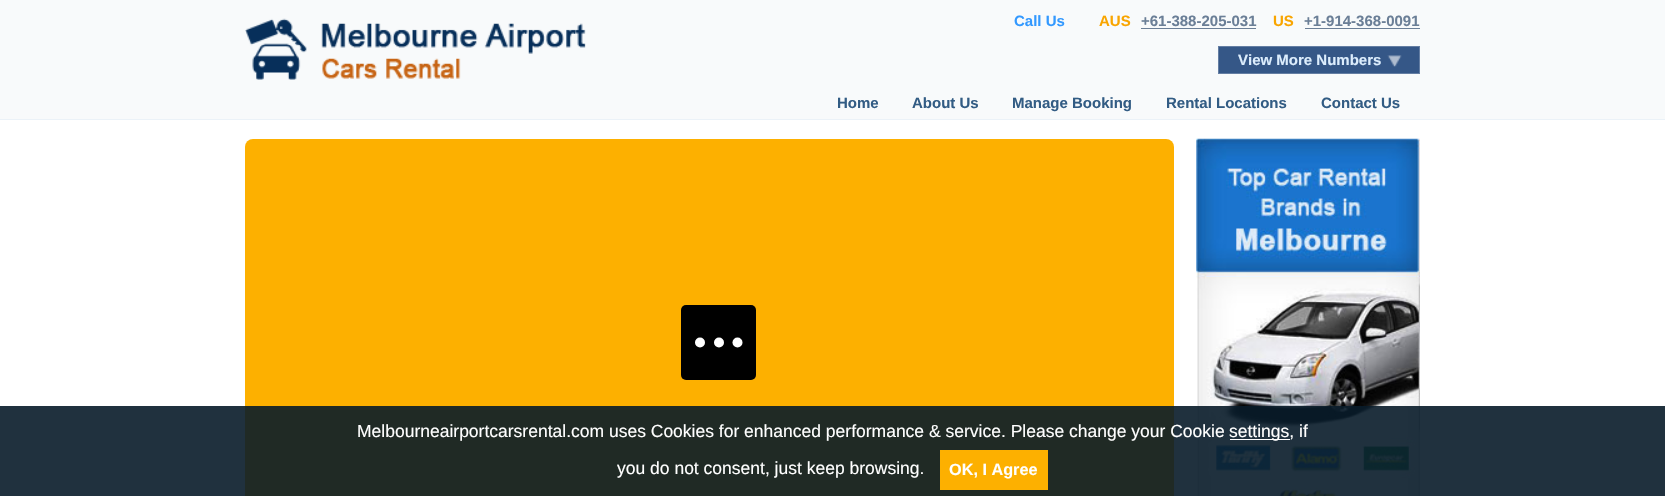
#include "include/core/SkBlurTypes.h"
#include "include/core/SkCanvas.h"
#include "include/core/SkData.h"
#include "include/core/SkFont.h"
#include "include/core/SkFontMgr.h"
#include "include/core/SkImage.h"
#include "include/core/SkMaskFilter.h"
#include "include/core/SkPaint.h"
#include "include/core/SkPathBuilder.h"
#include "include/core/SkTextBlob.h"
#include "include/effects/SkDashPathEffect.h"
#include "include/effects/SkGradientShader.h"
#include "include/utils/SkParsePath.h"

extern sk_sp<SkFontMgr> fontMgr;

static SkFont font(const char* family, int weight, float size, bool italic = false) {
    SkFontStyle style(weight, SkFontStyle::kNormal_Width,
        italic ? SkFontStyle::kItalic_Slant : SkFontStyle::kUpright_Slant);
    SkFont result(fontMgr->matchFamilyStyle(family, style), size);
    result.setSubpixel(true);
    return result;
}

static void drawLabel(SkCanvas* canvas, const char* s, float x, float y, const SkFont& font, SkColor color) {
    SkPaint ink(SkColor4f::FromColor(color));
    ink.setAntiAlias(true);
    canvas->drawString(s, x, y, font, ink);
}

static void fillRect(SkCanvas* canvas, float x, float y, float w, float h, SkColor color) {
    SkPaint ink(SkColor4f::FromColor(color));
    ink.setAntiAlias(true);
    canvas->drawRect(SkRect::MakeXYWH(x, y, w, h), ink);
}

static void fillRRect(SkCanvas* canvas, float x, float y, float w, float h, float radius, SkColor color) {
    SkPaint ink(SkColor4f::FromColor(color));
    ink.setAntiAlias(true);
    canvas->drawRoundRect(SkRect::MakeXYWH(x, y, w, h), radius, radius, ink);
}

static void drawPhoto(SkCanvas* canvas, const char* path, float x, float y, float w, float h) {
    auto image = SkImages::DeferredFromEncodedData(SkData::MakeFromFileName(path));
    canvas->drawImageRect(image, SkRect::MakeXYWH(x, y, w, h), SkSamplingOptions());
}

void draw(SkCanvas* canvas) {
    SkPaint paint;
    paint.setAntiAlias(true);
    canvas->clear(0xFFFFFFFF);
    fillRect(canvas, 0, 0, 1665, 119, 0xFFF8FAFB);
    fillRect(canvas, 0, 119, 1665, 1, 0xFFEBF2F8);
    drawPhoto(canvas, "assets/img1.png", 245, 18, 341, 62);
    SkFont font1 = font("Liberation Sans", 700, 15);
    drawLabel(canvas, "Call Us", 1014, 26, font1, 0xFF3399FF);
    drawLabel(canvas, "AUS", 1099, 26, font1, 0xFFF9A500);
    drawLabel(canvas, "+61-388-205-031", 1141, 26, font1, 0xFF6B7F97);
    fillRect(canvas, 1141, 28, 115, 1, 0xFF6B7F97);
    drawLabel(canvas, "US", 1273, 26, font1, 0xFFF9A500);
    drawLabel(canvas, "+1-914-368-0091", 1304, 26, font1, 0xFF6B7F97);
    fillRect(canvas, 1305, 28, 115, 1, 0xFF6B7F97);
    fillRect(canvas, 1219, 47, 200, 26, 0xFF355787);
    drawPhoto(canvas, "assets/img2.png", 1387, 55, 15, 12);
    paint.setStroke(true);
    paint.setStrokeWidth(1);
    paint.setColor(0xFF647EA3);
    canvas->drawRect(SkRect::MakeXYWH(1218.5f, 46.5f, 201, 27), paint);
    drawLabel(canvas, "View More Numbers", 1238, 65, font1, 0xFFDCEDFD);
    drawLabel(canvas, "Home", 837, 108, font1, 0xFF325C84);
    drawLabel(canvas, "About Us", 912, 108, font1, 0xFF325C84);
    drawLabel(canvas, "Manage Booking", 1012, 108, font1, 0xFF325C84);
    drawLabel(canvas, "Rental Locations", 1166, 108, font1, 0xFF325C84);
    drawLabel(canvas, "Contact Us", 1321, 108, font1, 0xFF325C84);
    fillRRect(canvas, 245, 139, 929, 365, 8, 0xFFFDB000);
    fillRRect(canvas, 681, 305, 75, 75, 5, 0xFF000000);
    paint.setStroke(false);
    paint.setColor(0xFFFFFFFF);
    canvas->drawCircle(700, 342.5f, 5, paint);
    canvas->drawCircle(719, 342.5f, 5, paint);
    canvas->drawCircle(737.5f, 342.5f, 5, paint);
    drawPhoto(canvas, "assets/img3.png", 1196, 138, 224, 358);
    fillRect(canvas, 0, 406, 1665, 90, 0xE6081B29);
    SkFont font2 = font("Liberation Sans", 400, 17.5f);
    drawLabel(canvas, "Melbourneairportcarsrental.com uses Cookies for enhanced performance & service. Please change your Cookie", 357, 437, font2, 0xFFFFFFFF);
    fillRect(canvas, 1230, 439, 60, 1, 0xFFFFFFFF);
    drawLabel(canvas, "settings, if", 1229, 437, font2, 0xFFFFFFFF);
    drawLabel(canvas, "you do not consent, just keep browsing.", 617, 474, font2, 0xFFFFFFFF);
    fillRect(canvas, 940, 450, 108, 40, 0xFFFDB000);
    SkFont font3 = font("Liberation Sans", 700, 16.25f);
    drawLabel(canvas, "OK, I Agree", 949, 475, font3, 0xFFFFFFFF);
}
